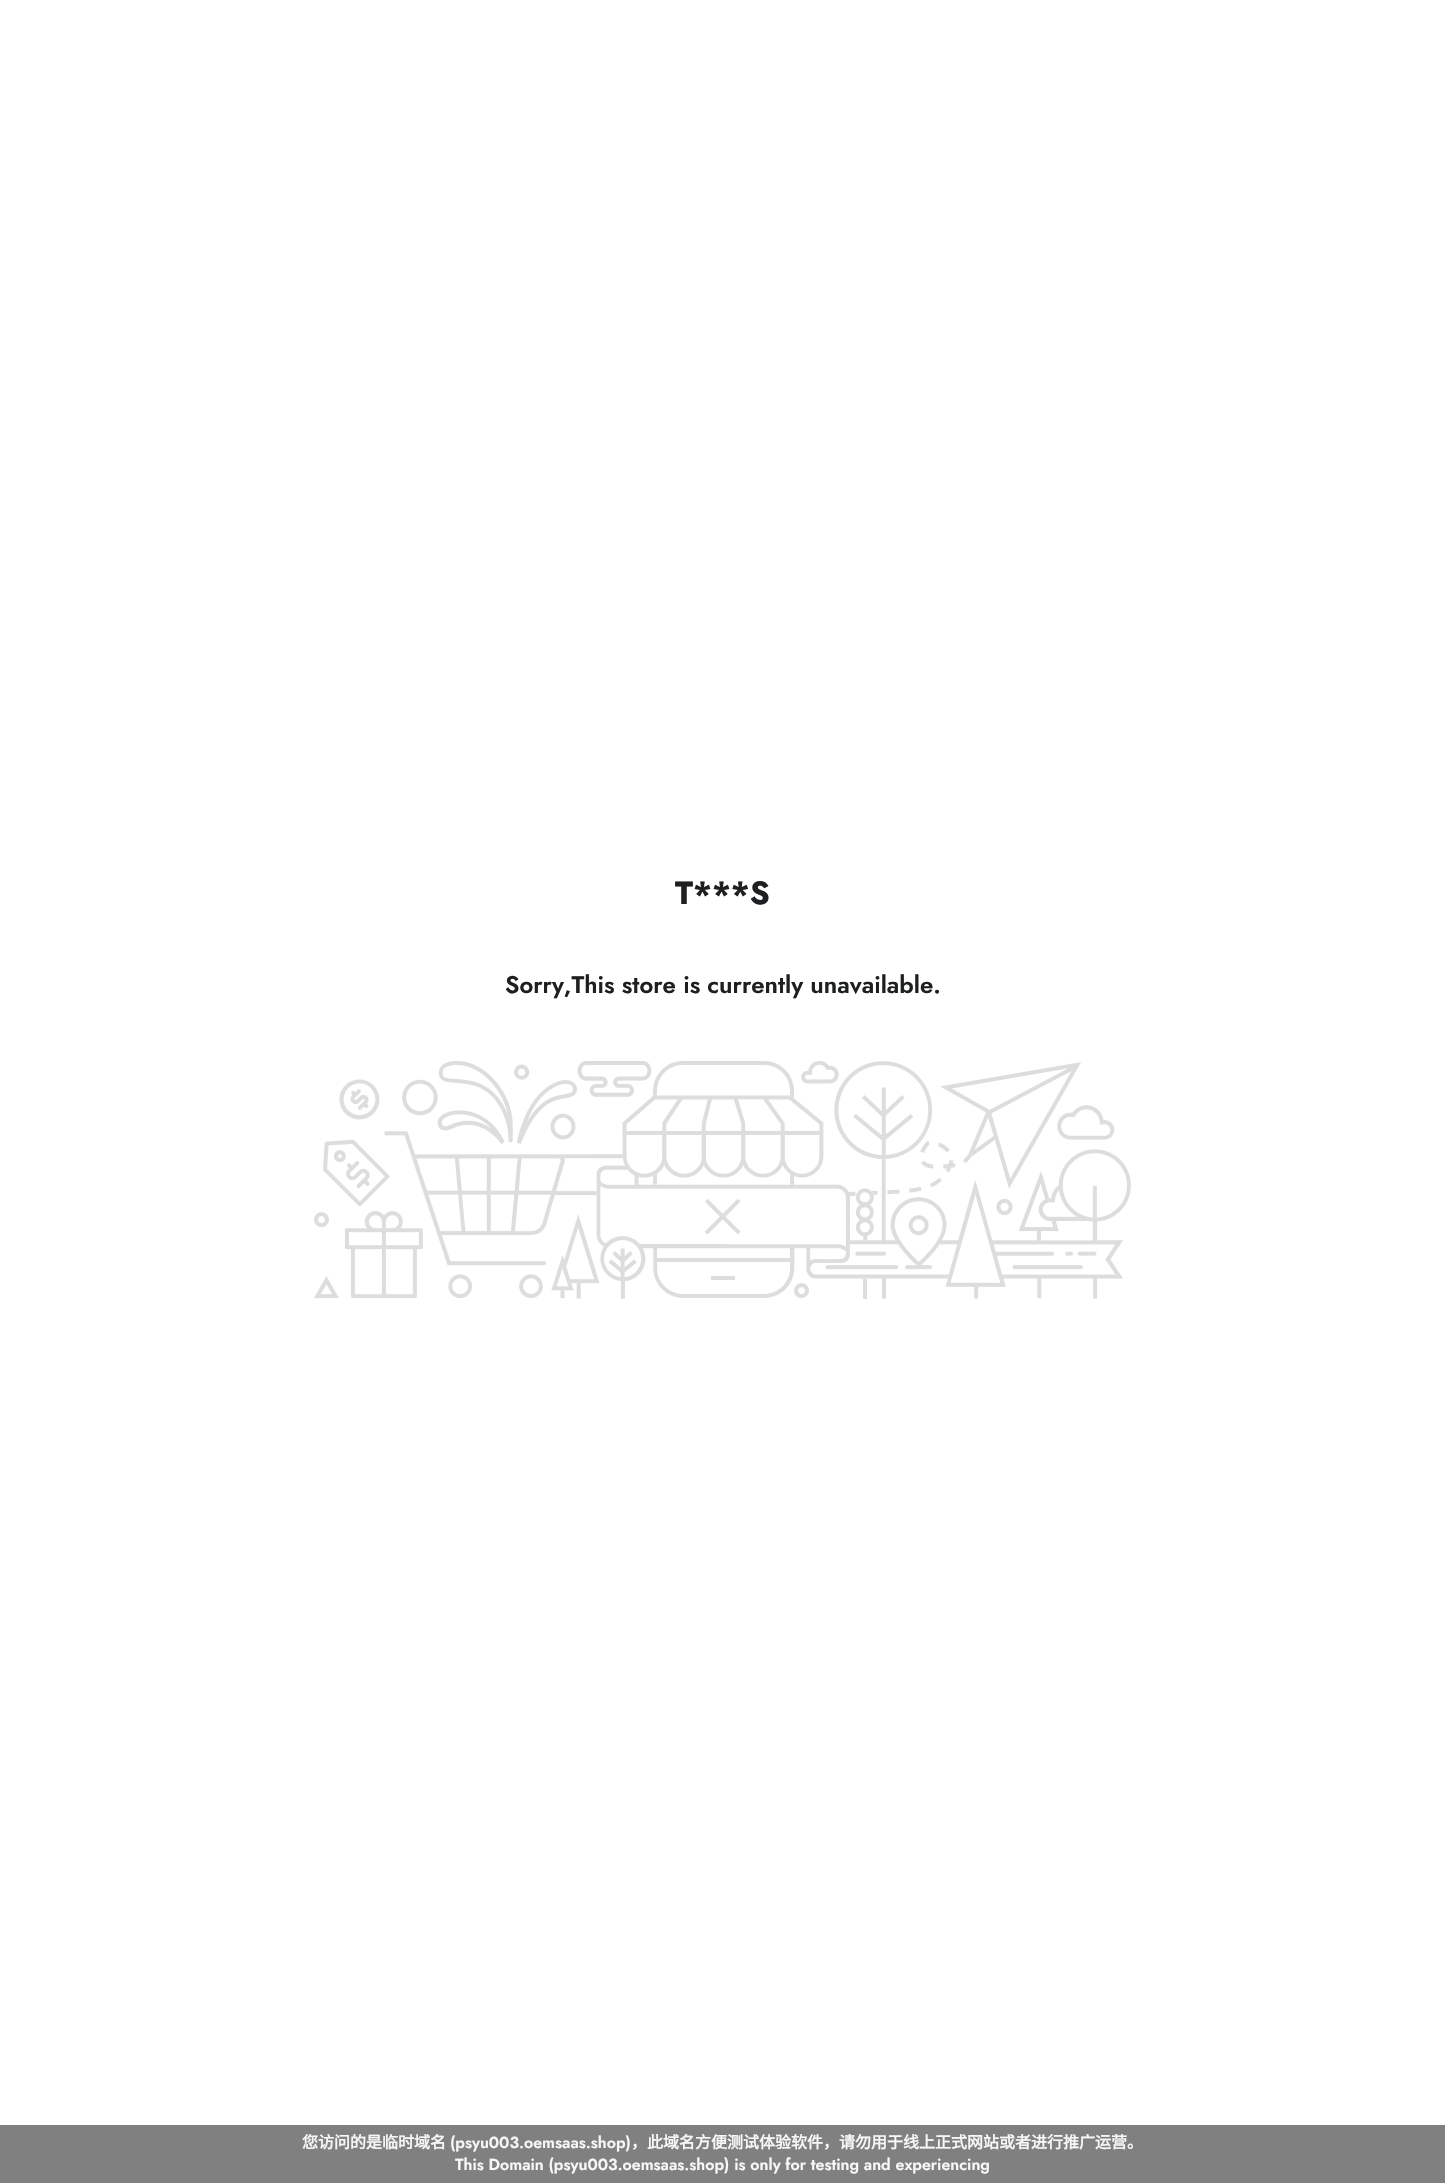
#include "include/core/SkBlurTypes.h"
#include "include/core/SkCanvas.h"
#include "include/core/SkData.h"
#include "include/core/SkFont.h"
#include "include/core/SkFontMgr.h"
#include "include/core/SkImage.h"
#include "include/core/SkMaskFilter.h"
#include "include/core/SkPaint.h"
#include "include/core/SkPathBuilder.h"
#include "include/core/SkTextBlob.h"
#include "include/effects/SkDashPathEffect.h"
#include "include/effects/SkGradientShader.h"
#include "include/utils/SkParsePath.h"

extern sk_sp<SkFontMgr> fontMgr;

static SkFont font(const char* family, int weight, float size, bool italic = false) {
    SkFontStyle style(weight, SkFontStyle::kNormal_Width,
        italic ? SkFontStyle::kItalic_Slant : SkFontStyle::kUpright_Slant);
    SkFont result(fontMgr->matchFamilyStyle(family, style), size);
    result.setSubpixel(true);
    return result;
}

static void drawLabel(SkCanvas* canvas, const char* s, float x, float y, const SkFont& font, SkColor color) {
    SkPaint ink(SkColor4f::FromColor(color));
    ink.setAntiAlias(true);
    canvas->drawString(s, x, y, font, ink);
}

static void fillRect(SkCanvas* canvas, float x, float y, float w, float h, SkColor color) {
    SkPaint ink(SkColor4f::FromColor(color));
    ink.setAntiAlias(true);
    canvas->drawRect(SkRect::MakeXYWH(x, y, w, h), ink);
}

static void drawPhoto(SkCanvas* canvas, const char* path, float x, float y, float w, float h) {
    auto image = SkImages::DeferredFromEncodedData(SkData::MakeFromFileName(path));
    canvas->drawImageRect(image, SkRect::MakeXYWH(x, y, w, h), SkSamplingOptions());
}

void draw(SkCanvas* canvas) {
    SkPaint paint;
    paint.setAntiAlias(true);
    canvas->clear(0xFFFFFFFF);
    SkFont font1 = font("Jost", 700, 32);
    drawLabel(canvas, "T***S", 675, 904, font1, 0xFF1D1F21);
    SkFont font2 = font("Jost", 600, 24);
    drawLabel(canvas, "Sorry,This store is currently unavailable.", 505, 993, font2, 0xFF1D1F21);
    drawPhoto(canvas, "assets/img1.png", 314, 1061, 817, 238);
    fillRect(canvas, 0, 2125, 1445, 58, 0xFF808080);
    SkFont font3 = font("Noto Sans CJK SC", 700, 16);
    drawLabel(canvas, "您访问的是临时域名", 302, 2148, font3, 0xFFF7F7F7);
    SkFont font4 = font("Jost", 600, 16);
    drawLabel(canvas, "(psyu003.oemsaas.shop)", 450, 2148, font4, 0xFFF7F7F7);
    drawLabel(canvas, "，此域名方便测试体验软件，请勿用于线上正式网站或者进行推广运营。", 631, 2148, font3, 0xFFF7F7F7);
    drawLabel(canvas, "This Domain (psyu003.oemsaas.shop) is only for testing and experiencing", 455, 2170, font4, 0xFFF7F7F7);
}
